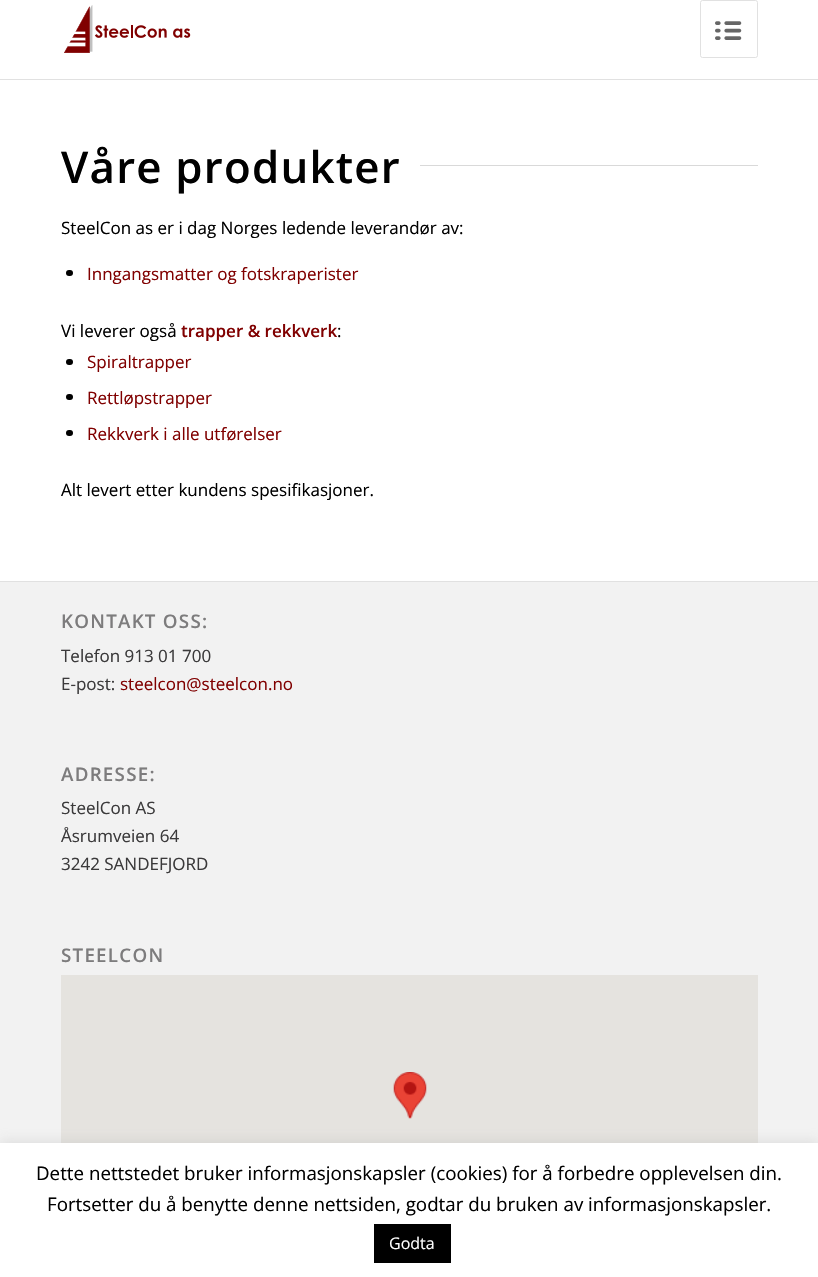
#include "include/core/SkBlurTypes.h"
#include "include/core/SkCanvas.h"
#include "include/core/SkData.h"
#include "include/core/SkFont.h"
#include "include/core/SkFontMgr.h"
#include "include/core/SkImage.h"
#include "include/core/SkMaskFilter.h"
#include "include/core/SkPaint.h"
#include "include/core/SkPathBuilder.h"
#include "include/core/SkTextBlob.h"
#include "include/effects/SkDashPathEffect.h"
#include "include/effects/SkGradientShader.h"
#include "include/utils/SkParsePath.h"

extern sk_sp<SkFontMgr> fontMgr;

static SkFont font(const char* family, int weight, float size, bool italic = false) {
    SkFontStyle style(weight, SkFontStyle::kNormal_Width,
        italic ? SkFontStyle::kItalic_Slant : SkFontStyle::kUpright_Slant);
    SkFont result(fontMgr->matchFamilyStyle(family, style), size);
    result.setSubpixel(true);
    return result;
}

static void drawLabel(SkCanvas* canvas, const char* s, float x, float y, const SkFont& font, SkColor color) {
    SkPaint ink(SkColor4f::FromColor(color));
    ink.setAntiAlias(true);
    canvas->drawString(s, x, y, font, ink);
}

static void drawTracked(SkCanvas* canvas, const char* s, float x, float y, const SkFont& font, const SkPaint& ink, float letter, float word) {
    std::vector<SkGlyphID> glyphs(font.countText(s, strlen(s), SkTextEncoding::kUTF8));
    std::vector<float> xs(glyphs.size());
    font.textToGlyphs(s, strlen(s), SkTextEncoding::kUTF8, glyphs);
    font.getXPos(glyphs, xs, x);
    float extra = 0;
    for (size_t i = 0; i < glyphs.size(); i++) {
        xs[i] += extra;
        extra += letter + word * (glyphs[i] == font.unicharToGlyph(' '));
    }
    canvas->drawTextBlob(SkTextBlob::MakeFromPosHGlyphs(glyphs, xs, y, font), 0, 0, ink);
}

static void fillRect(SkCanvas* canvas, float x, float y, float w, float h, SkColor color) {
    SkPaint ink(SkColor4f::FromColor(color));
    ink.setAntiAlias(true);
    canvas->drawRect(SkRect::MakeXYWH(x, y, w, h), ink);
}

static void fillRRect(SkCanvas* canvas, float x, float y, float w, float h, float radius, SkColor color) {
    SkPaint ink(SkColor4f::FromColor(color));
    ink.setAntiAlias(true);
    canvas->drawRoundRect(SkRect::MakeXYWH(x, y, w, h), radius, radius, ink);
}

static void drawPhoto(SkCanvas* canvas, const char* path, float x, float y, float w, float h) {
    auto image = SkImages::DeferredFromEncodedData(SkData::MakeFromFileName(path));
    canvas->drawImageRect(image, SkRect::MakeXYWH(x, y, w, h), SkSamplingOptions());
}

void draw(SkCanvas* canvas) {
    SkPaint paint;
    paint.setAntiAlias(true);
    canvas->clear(0xFFFFFFFF);
    fillRect(canvas, 0, 79, 818, 1, 0xFFE1E1E1);
    drawPhoto(canvas, "assets/img1.png", 64, 5, 127, 48);
    paint.setStroke(true);
    paint.setStrokeWidth(1);
    paint.setColor(0xFFE1E1E1);
    canvas->drawRoundRect(SkRect::MakeXYWH(700.5f, 0.5f, 57, 57), 2, 2, paint);
    drawPhoto(canvas, "assets/img2.png", 715, 21, 27, 19);
    SkFont font1 = font("Open Sans", 600, 43.75f);
    paint.setStroke(false);
    paint.setColor(0xFF000000);
    drawTracked(canvas, "Våre produkter", 61, 183, font1, paint, 1.25f, 0);
    fillRect(canvas, 420, 165, 338, 1, 0xFFD9D9D9);
    SkFont font2 = font("Open Sans", 400, 17);
    drawLabel(canvas, "SteelCon as er i dag Norges ledende leverandør av:", 61, 234, font2, 0xFF000000);
    fillRRect(canvas, 66, 270, 7, 6, 3, 0xFF000000);
    drawLabel(canvas, "Inngangsmatter og fotskraperister", 87, 280, font2, 0xFF800000);
    drawLabel(canvas, "Vi leverer også", 61, 337, font2, 0xFF000000);
    SkFont font3 = font("Open Sans", 600, 17);
    drawLabel(canvas, "trapper & rekkverk", 181, 337, font3, 0xFF800000);
    drawLabel(canvas, ":", 337, 337, font2, 0xFF000000);
    fillRRect(canvas, 66, 359, 7, 6, 3, 0xFF000000);
    drawLabel(canvas, "Spiraltrapper", 87, 368, font2, 0xFF800000);
    fillRRect(canvas, 66, 394, 7, 6, 3, 0xFF000000);
    drawLabel(canvas, "Rettløpstrapper", 87, 404, font2, 0xFF800000);
    fillRRect(canvas, 66, 430, 7, 6, 3, 0xFF000000);
    drawLabel(canvas, "Rekkverk i alle utførelser", 87, 440, font2, 0xFF800000);
    drawLabel(canvas, "Alt levert etter kundens spesifikasjoner.", 61, 496, font2, 0xFF000000);
    fillRect(canvas, 0, 582, 818, 561, 0xFFF2F2F2);
    fillRect(canvas, 0, 581, 818, 1, 0xFFE1E1E1);
    SkFont font4 = font("Open Sans", 600, 18.75f);
    paint.setColor(0xFF7D7C7D);
    drawTracked(canvas, "KONTAKT OSS:", 61, 628, font4, paint, 1.25f, 0);
    drawLabel(canvas, "Telefon 913 01 700", 61, 662, font2, 0xFF3B3A3B);
    drawLabel(canvas, "E-post:", 61, 690, font2, 0xFF3B3A3B);
    drawLabel(canvas, "steelcon@steelcon.no", 120, 690, font2, 0xFF800000);
    drawTracked(canvas, "ADRESSE:", 61, 781, font4, paint, 1.25f, 0);
    drawLabel(canvas, "SteelCon AS", 61, 814, font2, 0xFF3B3A3B);
    drawLabel(canvas, "Åsrumveien 64", 61, 842, font2, 0xFF3B3A3B);
    drawLabel(canvas, "3242 SANDEFJORD", 61, 870, font2, 0xFF3B3A3B);
    drawTracked(canvas, "STEELCON", 61, 962, font4, paint, 1.25f, 0);
    fillRect(canvas, 61, 975, 697, 168, 0xFFE5E3DF);
    drawPhoto(canvas, "assets/img3.png", 393, 1072, 34, 47);
    paint.setColor(0x4DACABAB);
    paint.setMaskFilter(SkMaskFilter::MakeBlur(kNormal_SkBlurStyle, 6));
    canvas->drawRect(SkRect::MakeXYWH(0, 1141, 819, 135), paint);
    paint.setMaskFilter(nullptr);
    fillRect(canvas, 0, 1143, 818, 134, 0xFFFFFFFF);
    SkFont font5 = font("Open Sans", 400, 18.75f);
    drawLabel(canvas, "Dette nettstedet bruker informasjonskapsler (cookies) for å forbedre opplevelsen din.", 36, 1180, font5, 0xFF000000);
    drawLabel(canvas, "Fortsetter du å benytte denne nettsiden, godtar du bruken av informasjonskapsler.", 47, 1211, font5, 0xFF000000);
    fillRect(canvas, 374, 1224, 77, 39, 0xFF000000);
    SkFont font6 = font("Open Sans", 400, 16);
    drawLabel(canvas, "Godta", 389, 1249, font6, 0xFFFFFFFF);
}
